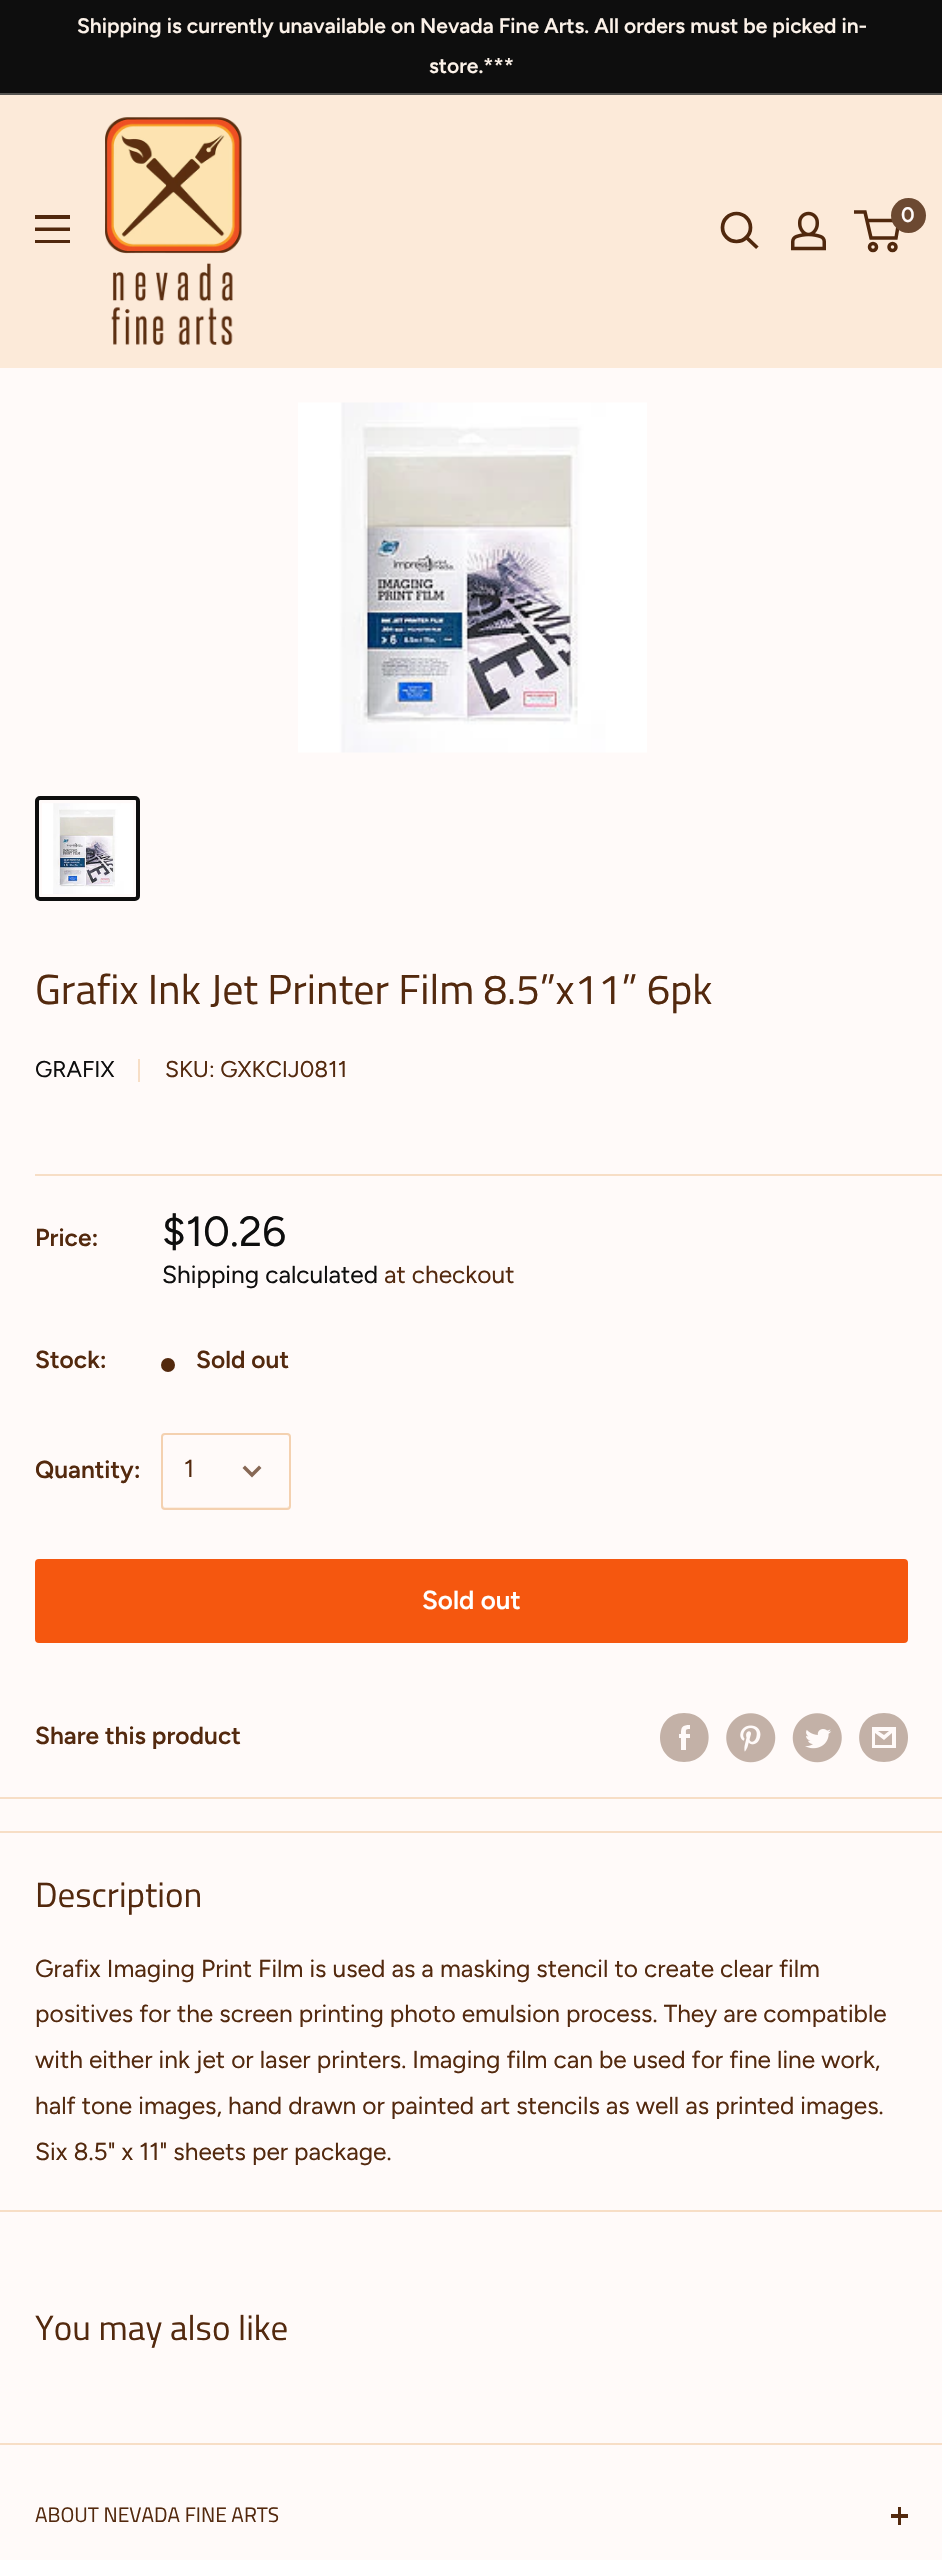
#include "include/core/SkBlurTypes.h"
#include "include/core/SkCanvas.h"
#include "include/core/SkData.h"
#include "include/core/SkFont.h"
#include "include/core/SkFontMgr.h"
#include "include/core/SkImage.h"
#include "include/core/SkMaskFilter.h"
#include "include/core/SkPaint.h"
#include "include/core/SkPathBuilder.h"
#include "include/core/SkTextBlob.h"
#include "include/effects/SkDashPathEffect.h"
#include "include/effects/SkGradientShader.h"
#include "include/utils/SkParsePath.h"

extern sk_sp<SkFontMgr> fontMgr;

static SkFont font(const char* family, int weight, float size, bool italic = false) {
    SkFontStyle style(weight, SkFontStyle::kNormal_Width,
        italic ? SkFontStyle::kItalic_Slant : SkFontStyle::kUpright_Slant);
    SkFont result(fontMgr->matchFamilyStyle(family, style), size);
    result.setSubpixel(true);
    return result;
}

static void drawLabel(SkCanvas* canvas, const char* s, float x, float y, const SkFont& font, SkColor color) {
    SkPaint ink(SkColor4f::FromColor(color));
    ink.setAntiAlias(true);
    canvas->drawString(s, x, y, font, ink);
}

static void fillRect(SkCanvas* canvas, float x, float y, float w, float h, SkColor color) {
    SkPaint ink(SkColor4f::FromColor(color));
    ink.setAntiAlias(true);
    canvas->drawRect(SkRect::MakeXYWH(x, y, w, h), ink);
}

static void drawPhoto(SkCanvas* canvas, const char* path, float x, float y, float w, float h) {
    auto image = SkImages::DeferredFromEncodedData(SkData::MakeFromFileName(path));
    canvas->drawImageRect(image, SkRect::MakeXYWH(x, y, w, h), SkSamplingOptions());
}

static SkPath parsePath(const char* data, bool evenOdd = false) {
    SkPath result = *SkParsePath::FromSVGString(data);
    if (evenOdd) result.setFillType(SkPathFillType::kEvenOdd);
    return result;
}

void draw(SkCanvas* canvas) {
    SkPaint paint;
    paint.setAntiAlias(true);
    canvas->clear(0xFFFFFAF9);
    fillRect(canvas, 0, 0, 942, 93, 0xFF0E0E0E);
    fillRect(canvas, 0, 93, 942, 2, 0xFF565552);
    SkFont font1 = font("Figtree", 600, 21);
    drawLabel(canvas, "Shipping is currently unavailable on Nevada Fine Arts. All orders must be picked in-", 77, 33, font1, 0xFFFCF2E9);
    drawLabel(canvas, "store.***", 429, 73, font1, 0xFFFCF2E9);
    fillRect(canvas, 0, 95, 942, 273, 0xFFFCEAD9);
    paint.setColor(0xFF50280D);
    canvas->drawPath(parsePath("M35 240H70V243H35ZM35 215H70V219H35ZM35 227.5H70V231H35Z", true), paint);
    drawPhoto(canvas, "assets/img1.png", 105, 117, 137, 228);
    paint.setStroke(true);
    paint.setStrokeWidth(3.7f);
    paint.setStrokeCap(SkPaint::kSquare_Cap);
    canvas->drawPath(parsePath("M756 246.5L746.5 237.5"), paint);
    paint.setStrokeCap(SkPaint::kButt_Cap);
    canvas->drawCircle(736.5f, 227.5f, 14, paint);
    drawPhoto(canvas, "assets/img2.png", 791, 211, 35, 40);
    paint.setStrokeWidth(3.5f);
    canvas->drawCircle(873, 247, 3.5f, paint);
    canvas->drawCircle(892.5f, 247, 3.5f, paint);
    canvas->drawPath(parsePath("M867 220.5H899L896 238H871L865 212H854"), paint);
    paint.setStroke(false);
    paint.setColor(0xFF6C4931);
    canvas->drawCircle(908.5f, 215.5f, 17.5f, paint);
    drawLabel(canvas, "0", 901, 222, font1, 0xFFFFFAF9);
    drawPhoto(canvas, "assets/img3.png", 298, 402, 349, 351);
    paint.setStroke(true);
    paint.setStrokeWidth(4);
    paint.setColor(0xFF0E0E0E);
    canvas->drawRoundRect(SkRect::MakeXYWH(37, 798, 101, 101), 3, 3, paint);
    drawPhoto(canvas, "assets/img4.png", 42, 803, 91, 91);
    fillRect(canvas, 0, 1797, 942, 2, 0xFFF7DEC6);
    SkFont font2 = font("Titillium Web", 400, 42);
    drawLabel(canvas, "Grafix Ink Jet Printer Film 8.5”x11” 6pk", 35, 1004, font2, 0xFF53290E);
    SkFont font3 = font("Figtree", 400, 22.75f);
    drawLabel(canvas, "GRAFIX", 35, 1077, font3, 0xFF0E0E0E);
    fillRect(canvas, 138, 1059, 2, 23, 0xFFF7DEC6);
    drawLabel(canvas, "SKU: GXKCIJ0811", 165, 1077, font3, 0xFF53290E);
    fillRect(canvas, 35, 1174, 907, 2, 0xFFF7DEC6);
    SkFont font4 = font("Figtree", 600, 24.5f);
    drawLabel(canvas, "Price:", 35, 1246, font4, 0xFF53290E);
    SkFont font5 = font("Figtree", 400, 42);
    drawLabel(canvas, "$10.26", 162, 1246, font5, 0xFF0E0E0E);
    SkFont font6 = font("Figtree", 400, 24.5f);
    drawLabel(canvas, "Shipping calculated", 162, 1283, font6, 0xFF0E0E0E);
    drawLabel(canvas, "at checkout", 384, 1283, font6, 0xFF53290E);
    drawLabel(canvas, "Stock:", 35, 1368, font4, 0xFF53290E);
    paint.setStroke(false);
    paint.setColor(0xFF53290E);
    canvas->drawCircle(168, 1365, 7, paint);
    drawLabel(canvas, "Sold out", 196, 1368, font4, 0xFF53290E);
    drawLabel(canvas, "Quantity:", 35, 1478, font4, 0xFF53290E);
    paint.setColor(0xFFFCEEE3);
    canvas->drawPath(parsePath("M163 1505V1507C163 1508 164 1509 165 1509H287C288 1509 289 1508 289 1507V1505V1506L287 1507H164Z"), paint);
    paint.setStroke(true);
    paint.setStrokeWidth(2);
    paint.setColor(0xFFF4D1B0);
    canvas->drawRoundRect(SkRect::MakeXYWH(162, 1434, 128, 75), 3, 3, paint);
    drawLabel(canvas, "1", 184, 1477, font6, 0xFF53290E);
    paint.setStrokeWidth(3.5f);
    paint.setStrokeCap(SkPaint::kSquare_Cap);
    paint.setColor(0xFF876855);
    canvas->drawPath(parsePath("M259 1468L252 1475L245 1468"), paint);
    paint.setStroke(false);
    paint.setColor(0xFFF5570F);
    canvas->drawRoundRect(SkRect::MakeXYWH(36, 1560, 871, 82), 3, 3, paint);
    paint.setStroke(true);
    paint.setStrokeWidth(2);
    paint.setStrokeCap(SkPaint::kButt_Cap);
    canvas->drawRoundRect(SkRect::MakeXYWH(36, 1560, 871, 82), 3, 3, paint);
    SkFont font7 = font("Figtree", 600, 26);
    drawLabel(canvas, "Sold out", 422, 1609, font7, 0xFFFFFFFF);
    drawLabel(canvas, "Share this product", 35, 1744, font4, 0xFF53290E);
    paint.setStroke(false);
    paint.setColor(0xFFC3B1A7);
    canvas->drawPath(parsePath("M684 1762C652 1762 652 1713 684 1713C717 1713 717 1762 684 1762ZM690 1734H686C686 1730 685 1729 690 1729V1725C682 1725 681 1727 681 1734H679V1738H681V1750H686V1738H690Z", true), paint);
    drawPhoto(canvas, "assets/img5.png", 726, 1713, 50, 50);
    drawPhoto(canvas, "assets/img6.png", 792, 1713, 50, 50);
    canvas->drawPath(parsePath("M884 1762C851 1762 851 1713 884 1713C916 1713 916 1762 884 1762ZM878 1731H889L884 1735ZM892 1733V1745H875V1733L884 1740ZM896 1727H872V1748H896Z"), paint);
    fillRect(canvas, 0, 1831, 942, 2, 0xFFF7DEC6);
    fillRect(canvas, 0, 2210, 942, 2, 0xFFF7DEC6);
    SkFont font8 = font("Titillium Web", 400, 35);
    drawLabel(canvas, "Description", 35, 1907, font8, 0xFF53290E);
    drawLabel(canvas, "Grafix Imaging Print Film is used as a masking stencil to create clear film", 35, 1977, font6, 0xFF53290E);
    drawLabel(canvas, "positives for the screen printing photo emulsion process. They are compatible", 35, 2022, font6, 0xFF53290E);
    drawLabel(canvas, "with either ink jet or laser printers. Imaging film can be used for fine line work,", 35, 2068, font6, 0xFF53290E);
    drawLabel(canvas, "half tone images, hand drawn or painted art stencils as well as printed images.", 35, 2114, font6, 0xFF53290E);
    drawLabel(canvas, "Six 8.5\" x 11\" sheets per package.", 35, 2160, font6, 0xFF53290E);
    drawLabel(canvas, "You may also like", 35, 2340, font8, 0xFF53290E);
    fillRect(canvas, 0, 2443, 942, 2, 0xFFF7DEC6);
    SkFont font9 = font("Titillium Web", 400, 21);
    drawLabel(canvas, "ABOUT NEVADA FINE ARTS", 35, 2522, font9, 0xFF53290E);
    fillRect(canvas, 898, 2507, 3, 18, 0xFF53290E);
    fillRect(canvas, 891, 2514, 17, 4, 0xFF53290E);
}
